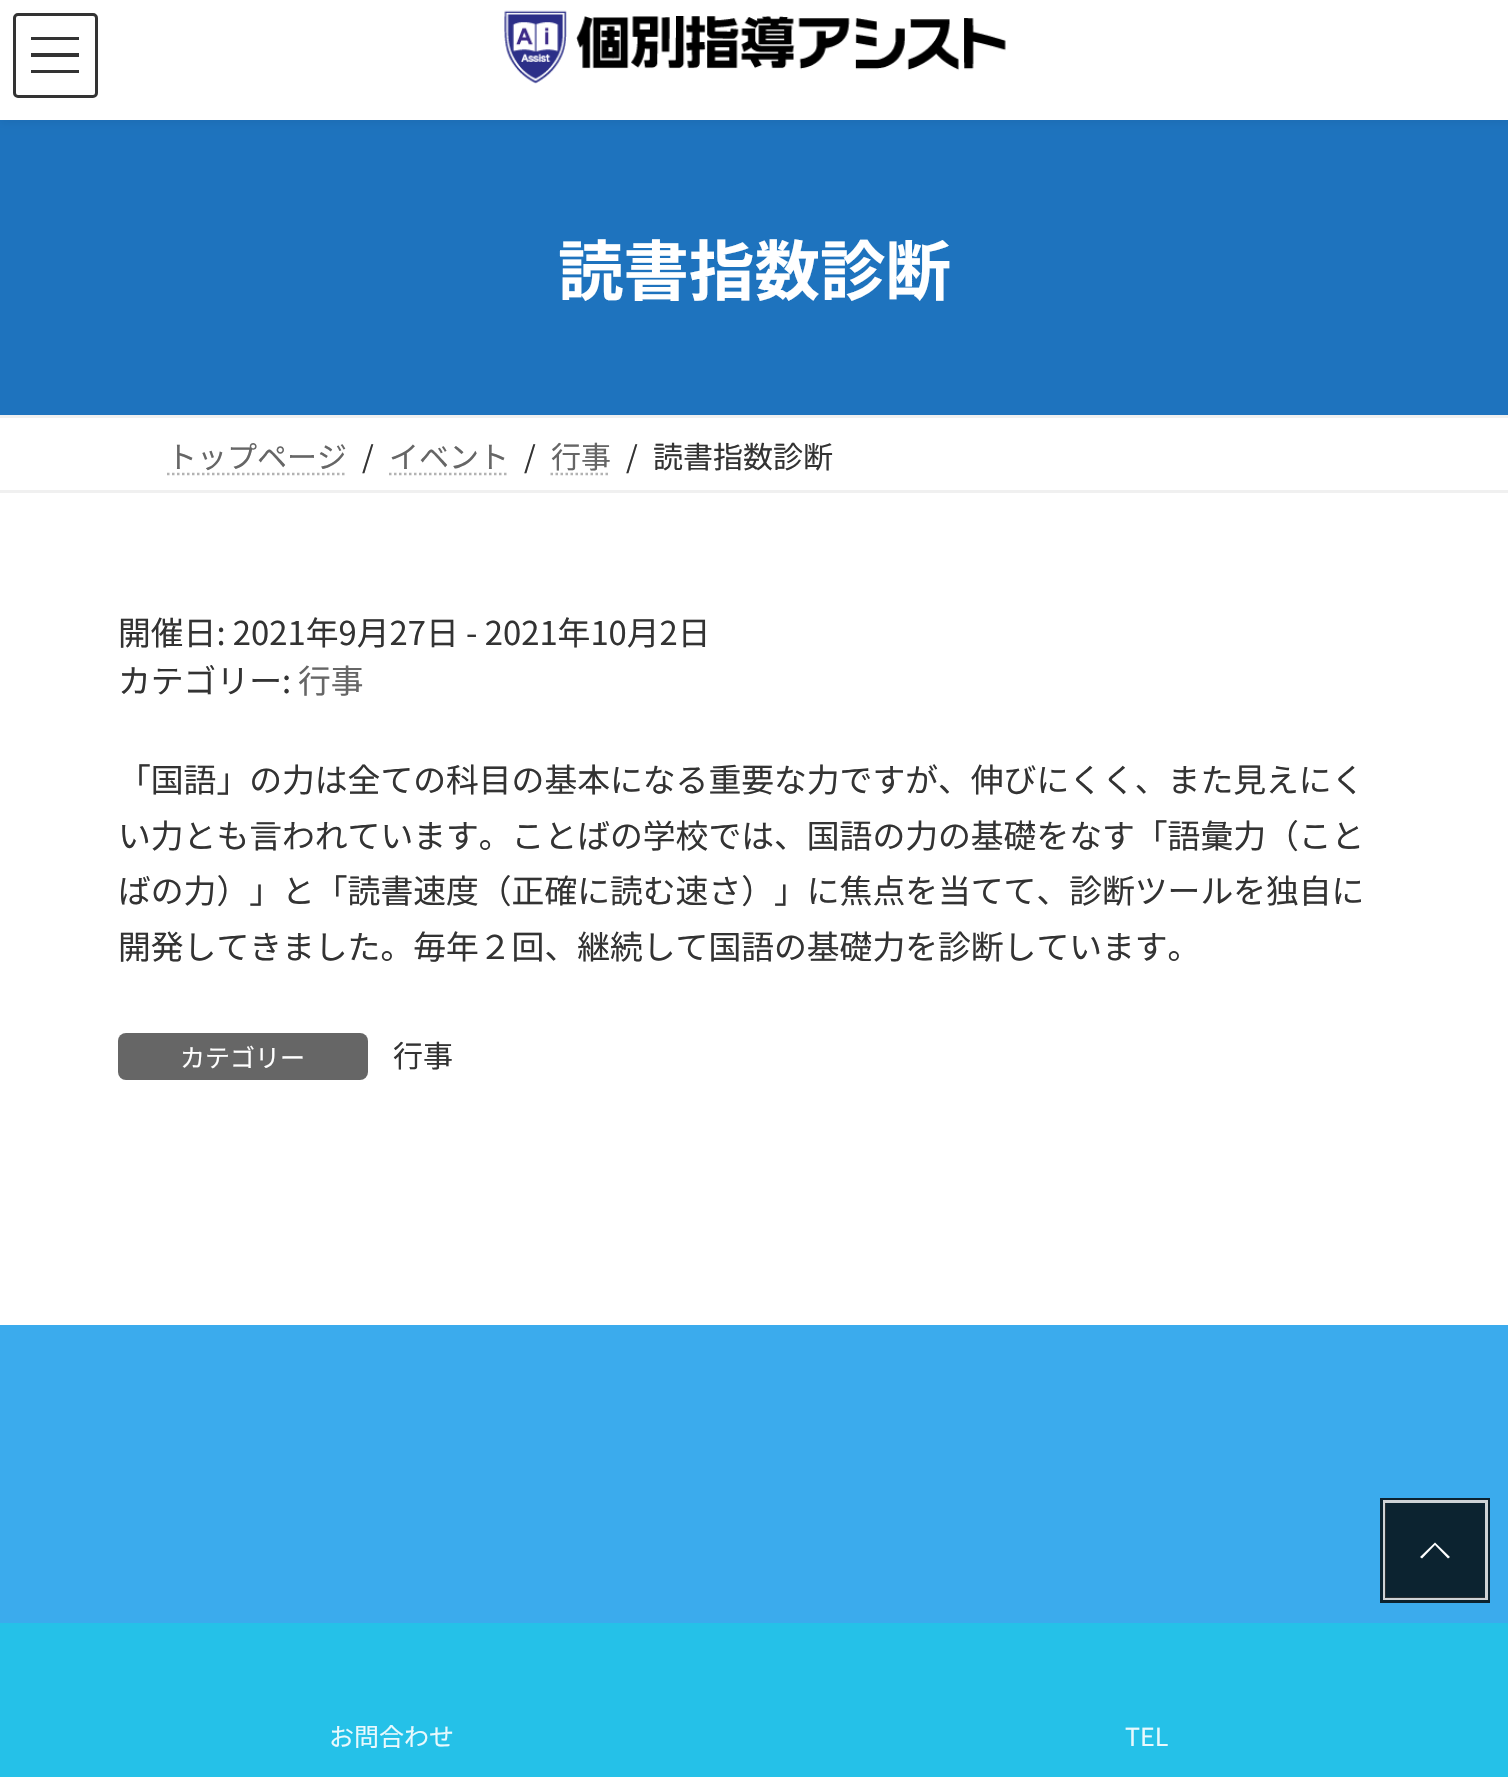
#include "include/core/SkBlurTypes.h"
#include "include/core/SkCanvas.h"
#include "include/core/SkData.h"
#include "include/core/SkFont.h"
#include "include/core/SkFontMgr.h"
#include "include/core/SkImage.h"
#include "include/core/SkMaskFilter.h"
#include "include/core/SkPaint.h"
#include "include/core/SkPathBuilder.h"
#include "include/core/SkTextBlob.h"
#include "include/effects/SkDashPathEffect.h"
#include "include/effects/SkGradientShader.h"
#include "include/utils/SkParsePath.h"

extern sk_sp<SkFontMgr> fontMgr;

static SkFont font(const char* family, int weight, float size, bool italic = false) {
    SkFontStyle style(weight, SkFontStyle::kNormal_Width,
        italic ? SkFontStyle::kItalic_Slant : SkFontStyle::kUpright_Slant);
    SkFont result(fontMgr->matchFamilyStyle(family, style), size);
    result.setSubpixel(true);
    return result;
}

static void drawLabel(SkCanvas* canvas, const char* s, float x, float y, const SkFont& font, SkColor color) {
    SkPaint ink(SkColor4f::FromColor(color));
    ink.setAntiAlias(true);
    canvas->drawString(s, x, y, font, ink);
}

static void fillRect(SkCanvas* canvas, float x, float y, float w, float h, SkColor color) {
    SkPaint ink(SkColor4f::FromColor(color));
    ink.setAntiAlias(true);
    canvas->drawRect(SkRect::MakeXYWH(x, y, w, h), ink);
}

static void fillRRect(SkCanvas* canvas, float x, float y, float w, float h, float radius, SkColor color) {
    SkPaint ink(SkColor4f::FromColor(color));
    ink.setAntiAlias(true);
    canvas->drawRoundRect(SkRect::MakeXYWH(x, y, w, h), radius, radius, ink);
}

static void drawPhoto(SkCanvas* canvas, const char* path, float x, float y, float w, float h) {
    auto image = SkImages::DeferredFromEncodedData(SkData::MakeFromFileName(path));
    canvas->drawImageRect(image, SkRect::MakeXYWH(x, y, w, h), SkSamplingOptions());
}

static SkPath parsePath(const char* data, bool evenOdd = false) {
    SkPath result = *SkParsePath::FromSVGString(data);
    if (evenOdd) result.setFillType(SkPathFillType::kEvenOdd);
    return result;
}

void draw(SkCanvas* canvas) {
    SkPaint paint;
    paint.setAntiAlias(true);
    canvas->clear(0xFFFFFFFF);
    fillRect(canvas, 0, 120, 1508, 295, 0xFF1E73BE);
    paint.setColor(0x0D000000);
    paint.setMaskFilter(SkMaskFilter::MakeBlur(kNormal_SkBlurStyle, 4));
    canvas->drawRect(SkRect::MakeXYWH(0, -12, 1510, 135), paint);
    paint.setMaskFilter(nullptr);
    fillRect(canvas, 0, 0, 1508, 120, 0xFFFFFFFF);
    drawPhoto(canvas, "assets/img1.png", 504, 10, 502, 74);
    fillRect(canvas, 31, 37, 48, 3, 0xFF333333);
    fillRect(canvas, 31, 53, 48, 4, 0xFF333333);
    fillRect(canvas, 31, 70, 48, 3, 0xFF333333);
    paint.setStroke(true);
    paint.setStrokeWidth(3);
    paint.setColor(0xFF333333);
    canvas->drawRoundRect(SkRect::MakeXYWH(14.5f, 14.5f, 82, 82), 3.5f, 3.5f, paint);
    SkFont font1 = font("Noto Sans JP", 700, 65.5f);
    drawLabel(canvas, "読書指数診断", 558, 295, font1, 0xFFFFFFFF);
    fillRect(canvas, 0, 415, 1508, 3, 0xFFF0F0F0);
    fillRect(canvas, 0, 490, 1508, 3, 0xFFF0F0F0);
    SkFont font2 = font("Noto Sans JP", 400, 30);
    drawLabel(canvas, "トップページ", 167, 468, font2, 0xFF666666);
    paint.setStrokeWidth(2.5f);
    paint.setColor(0xFFB3B3B3);
    paint.setPathEffect(SkDashPathEffect::Make({{2.5f, 2.5f}}, 0));
    canvas->drawPath(parsePath("M167 474H347"), paint);
    paint.setPathEffect(nullptr);
    drawLabel(canvas, "/", 362, 468, font2, 0xFF333333);
    drawLabel(canvas, "イベント", 389, 468, font2, 0xFF666666);
    paint.setPathEffect(SkDashPathEffect::Make({{2.5f, 2.5f}}, 0));
    canvas->drawPath(parsePath("M389 474H509"), paint);
    paint.setPathEffect(nullptr);
    drawLabel(canvas, "/", 524, 468, font2, 0xFF333333);
    drawLabel(canvas, "行事", 551, 468, font2, 0xFF666666);
    paint.setPathEffect(SkDashPathEffect::Make({{2.5f, 2.5f}}, 0));
    canvas->drawPath(parsePath("M550.5 474H610.5"), paint);
    paint.setPathEffect(nullptr);
    drawLabel(canvas, "/", 626, 468, font2, 0xFF333333);
    drawLabel(canvas, "読書指数診断", 653, 468, font2, 0xFF333333);
    SkFont font3 = font("Noto Sans JP", 400, 32.8f);
    drawLabel(canvas, "開催日: 2021年9月27日 - 2021年10月2日", 118, 645, font3, 0xFF333333);
    drawLabel(canvas, "カテゴリー:", 118, 693, font3, 0xFF333333);
    drawLabel(canvas, "行事", 298, 693, font3, 0xFF666666);
    drawLabel(canvas, "「国語」の力は全ての科目の基本になる重要な力ですが、伸びにくく、また見えにく", 118, 792, font3, 0xFF333333);
    drawLabel(canvas, "い力とも言われています。ことばの学校では、国語の力の基礎をなす「語彙力（こと", 118, 848, font3, 0xFF333333);
    drawLabel(canvas, "ばの力）」と「読書速度（正確に読む速さ）」に焦点を当てて、診断ツールを独自に", 118, 903, font3, 0xFF333333);
    drawLabel(canvas, "開発してきました。毎年２回、継続して国語の基礎力を診断しています。", 118, 959, font3, 0xFF333333);
    fillRRect(canvas, 118, 1033, 250, 47, 8, 0xFF666666);
    SkFont font4 = font("Noto Sans JP", 400, 25);
    drawLabel(canvas, "カテゴリー", 180, 1067, font4, 0xFFFFFFFF);
    drawLabel(canvas, "行事", 393, 1067, font2, 0xFF333333);
    fillRect(canvas, 0, 1325, 1508, 298, 0xFF3BABED);
    paint.setStrokeWidth(5);
    paint.setColor(0xFF0C222F);
    canvas->drawRect(SkRect::MakeXYWH(1382.5f, 1500.5f, 105, 100), paint);
    paint.setStrokeWidth(3);
    paint.setColor(0xCCFFFFFF);
    canvas->drawRect(SkRect::MakeXYWH(1384.5f, 1501.5f, 102, 97), paint);
    fillRect(canvas, 1385, 1503, 100, 95, 0xCC000000);
    paint.setStroke(false);
    paint.setColor(0xFFFFFFFF);
    canvas->drawPath(parsePath("M1450 1557L1448 1558.5L1435 1545L1422 1558.5L1420 1557L1435 1542.5Z"), paint);
    fillRect(canvas, 0, 1623, 1508, 154, 0xFF25C1E8);
    drawLabel(canvas, "お問合わせ", 329, 1746, font4, 0xFFE9F9FD);
    drawLabel(canvas, "TEL", 1125, 1746, font4, 0xFFE9F9FD);
}
